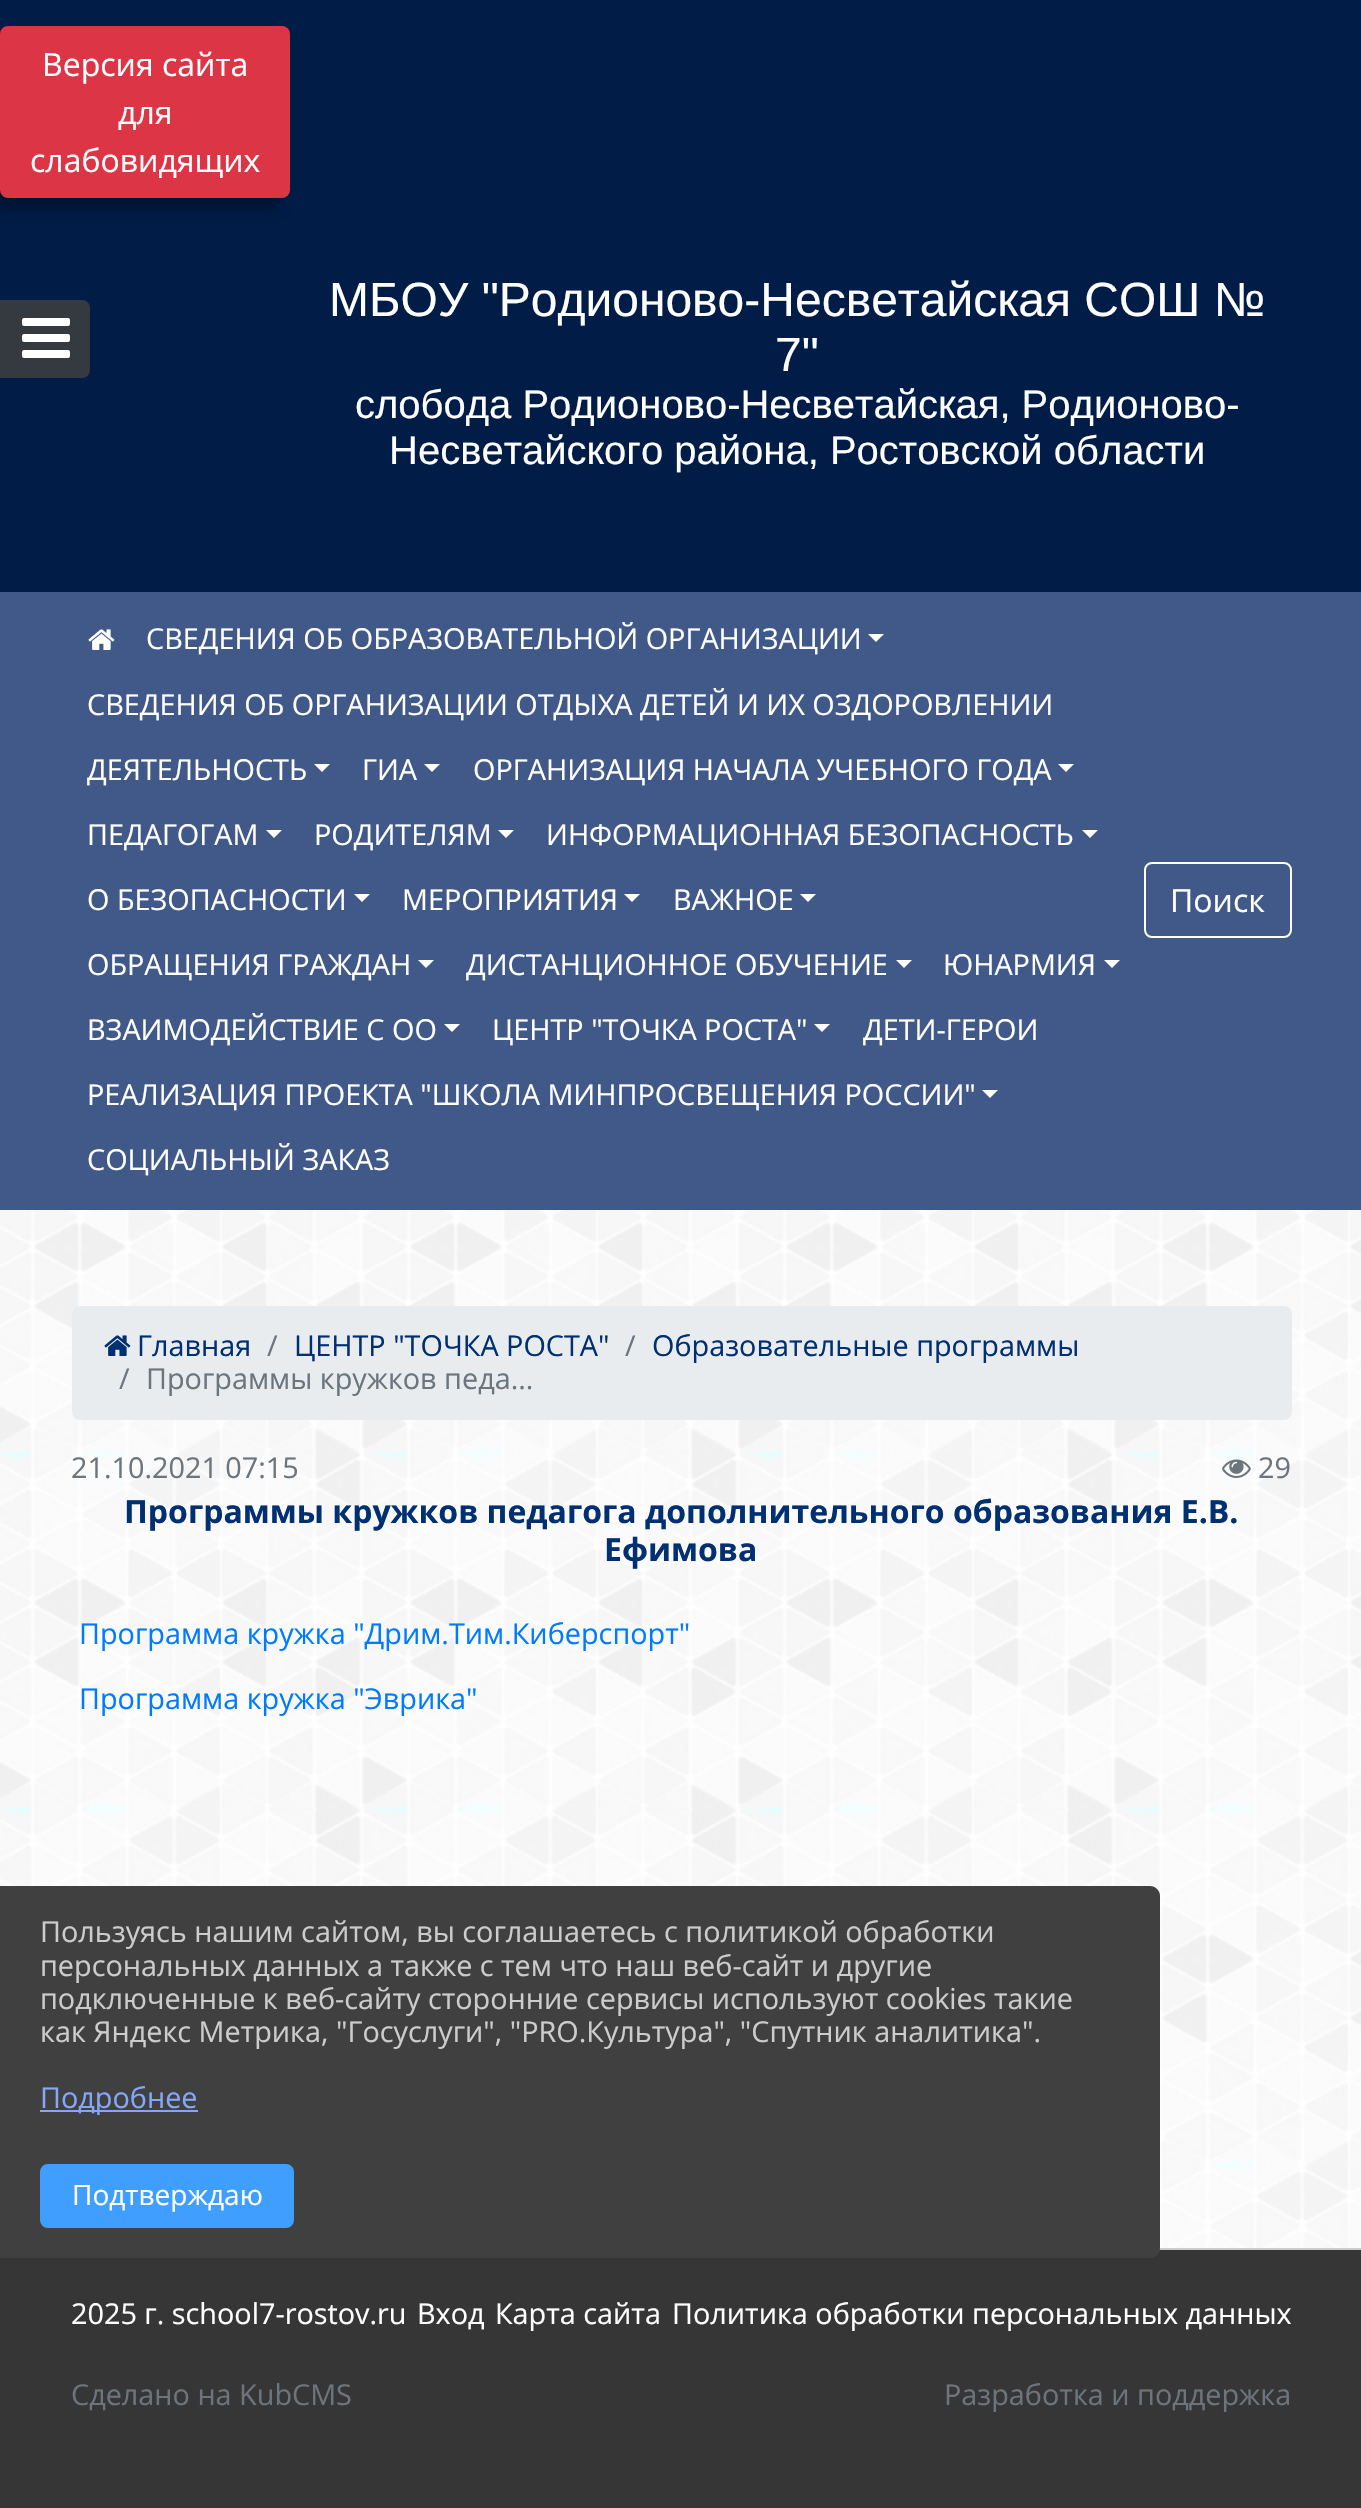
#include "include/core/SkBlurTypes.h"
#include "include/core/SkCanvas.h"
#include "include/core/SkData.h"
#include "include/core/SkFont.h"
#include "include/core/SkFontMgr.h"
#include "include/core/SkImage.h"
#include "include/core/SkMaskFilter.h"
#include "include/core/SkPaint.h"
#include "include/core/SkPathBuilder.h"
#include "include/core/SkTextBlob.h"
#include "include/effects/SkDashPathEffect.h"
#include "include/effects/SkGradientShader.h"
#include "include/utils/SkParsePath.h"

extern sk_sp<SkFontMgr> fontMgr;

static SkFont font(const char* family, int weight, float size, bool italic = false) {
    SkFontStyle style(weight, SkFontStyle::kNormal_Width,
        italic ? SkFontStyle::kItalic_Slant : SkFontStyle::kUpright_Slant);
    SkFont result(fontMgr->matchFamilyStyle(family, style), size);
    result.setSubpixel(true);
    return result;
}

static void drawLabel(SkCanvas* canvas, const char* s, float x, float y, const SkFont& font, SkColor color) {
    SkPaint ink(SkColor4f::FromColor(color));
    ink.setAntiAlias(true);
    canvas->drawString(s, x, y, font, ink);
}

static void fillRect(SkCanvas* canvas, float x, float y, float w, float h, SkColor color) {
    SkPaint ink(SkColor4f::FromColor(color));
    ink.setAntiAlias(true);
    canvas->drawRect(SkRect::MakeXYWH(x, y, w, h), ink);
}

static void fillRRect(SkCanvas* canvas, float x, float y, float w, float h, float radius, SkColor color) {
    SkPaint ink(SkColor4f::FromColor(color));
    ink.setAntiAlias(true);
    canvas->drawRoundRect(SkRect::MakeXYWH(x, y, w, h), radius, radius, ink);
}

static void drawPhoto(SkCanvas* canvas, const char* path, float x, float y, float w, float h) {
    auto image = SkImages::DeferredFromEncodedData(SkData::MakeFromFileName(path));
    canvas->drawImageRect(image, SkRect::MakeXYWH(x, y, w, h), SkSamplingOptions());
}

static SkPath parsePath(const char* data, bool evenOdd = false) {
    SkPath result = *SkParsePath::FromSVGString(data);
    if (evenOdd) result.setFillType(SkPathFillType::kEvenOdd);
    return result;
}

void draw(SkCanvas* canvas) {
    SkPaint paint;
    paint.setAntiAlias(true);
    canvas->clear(0xFFFFFFFF);
    drawPhoto(canvas, "assets/img1.png", 0, 1210, 1361, 1038);
    fillRect(canvas, 0, 0, 1361, 592, 0xFF001C47);
    paint.setColor(0x59000000);
    paint.setMaskFilter(SkMaskFilter::MakeBlur(kNormal_SkBlurStyle, 8));
    canvas->drawRoundRect(SkRect::MakeXYWH(-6, 40, 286, 168), 6, 6, paint);
    paint.setMaskFilter(nullptr);
    paint.setColor(0xFFDC3545);
    canvas->drawRoundRect(SkRect::MakeXYWH(1, 27, 288, 170), 7, 7, paint);
    paint.setStroke(true);
    paint.setStrokeWidth(2);
    canvas->drawRoundRect(SkRect::MakeXYWH(1, 27, 288, 170), 7, 7, paint);
    SkFont font1 = font("Open Sans", 400, 32);
    drawLabel(canvas, "Версия сайта", 42, 76, font1, 0xFFFFFFFF);
    drawLabel(canvas, "для", 118, 124, font1, 0xFFFFFFFF);
    drawLabel(canvas, "слабовидящих", 30, 172, font1, 0xFFFFFFFF);
    paint.setStroke(false);
    paint.setColor(0xFF343A40);
    canvas->drawPath(parsePath("M1 301H82C86 301 89 304 89 308V370C89 374 86 377 82 377H1Z"), paint);
    paint.setStroke(true);
    canvas->drawPath(parsePath("M1 301H82C86 301 89 304 89 308V370C89 374 86 377 82 377H1Z"), paint);
    drawPhoto(canvas, "assets/img2.png", 22, 318, 48, 40);
    SkFont font2 = font("Liberation Sans", 400, 48);
    drawLabel(canvas, "МБОУ \"Родионово-Несветайская СОШ №", 329, 316, font2, 0xFFFFFFFF);
    drawLabel(canvas, "7\"", 775, 371, font2, 0xFFFFFFFF);
    SkFont font3 = font("Liberation Sans", 400, 40);
    drawLabel(canvas, "слобода Родионово-Несветайская, Родионово-", 355, 418, font3, 0xFFFFFFFF);
    drawLabel(canvas, "Несветайского района, Ростовской области", 389, 464, font3, 0xFFFFFFFF);
    fillRect(canvas, 0, 592, 1361, 618, 0xFF405988);
    drawPhoto(canvas, "assets/img3.png", 88, 629, 27, 21);
    SkFont font4 = font("Open Sans", 400, 28.8f);
    drawLabel(canvas, "СВЕДЕНИЯ ОБ ОБРАЗОВАТЕЛЬНОЙ ОРГАНИЗАЦИИ", 146, 649, font4, 0xFFFFFFFF);
    paint.setStroke(false);
    paint.setColor(0xFFFFFFFF);
    canvas->drawPath(parsePath("M868 634H884L876 642Z"), paint);
    drawLabel(canvas, "СВЕДЕНИЯ ОБ ОРГАНИЗАЦИИ ОТДЫХА ДЕТЕЙ И ИХ ОЗДОРОВЛЕНИИ", 87, 715, font4, 0xFFFFFFFF);
    drawLabel(canvas, "ДЕЯТЕЛЬНОСТЬ", 87, 780, font4, 0xFFFFFFFF);
    canvas->drawPath(parsePath("M314 764H330L322 772Z"), paint);
    drawLabel(canvas, "ГИА", 362, 780, font4, 0xFFFFFFFF);
    canvas->drawPath(parsePath("M424 764H440L432 772Z"), paint);
    drawLabel(canvas, "ОРГАНИЗАЦИЯ НАЧАЛА УЧЕБНОГО ГОДА", 473, 780, font4, 0xFFFFFFFF);
    canvas->drawPath(parsePath("M1058 764H1074L1066 772Z"), paint);
    drawLabel(canvas, "ПЕДАГОГАМ", 87, 845, font4, 0xFFFFFFFF);
    canvas->drawPath(parsePath("M266 830H282L274 838Z"), paint);
    drawLabel(canvas, "РОДИТЕЛЯМ", 314, 845, font4, 0xFFFFFFFF);
    canvas->drawPath(parsePath("M498 830H514L506 838Z"), paint);
    drawLabel(canvas, "ИНФОРМАЦИОННАЯ БЕЗОПАСНОСТЬ", 546, 845, font4, 0xFFFFFFFF);
    canvas->drawPath(parsePath("M1082 830H1098L1090 838Z"), paint);
    drawLabel(canvas, "О БЕЗОПАСНОСТИ", 87, 910, font4, 0xFFFFFFFF);
    canvas->drawPath(parsePath("M354 894H370L362 902Z"), paint);
    drawLabel(canvas, "МЕРОПРИЯТИЯ", 402, 910, font4, 0xFFFFFFFF);
    canvas->drawPath(parsePath("M624 894H640L632 902Z"), paint);
    drawLabel(canvas, "ВАЖНОЕ", 673, 910, font4, 0xFFFFFFFF);
    canvas->drawPath(parsePath("M800 894H816L808 902Z"), paint);
    drawLabel(canvas, "ОБРАЩЕНИЯ ГРАЖДАН", 87, 975, font4, 0xFFFFFFFF);
    canvas->drawPath(parsePath("M418 960H434L426 968Z"), paint);
    drawLabel(canvas, "ДИСТАНЦИОННОЕ ОБУЧЕНИЕ", 466, 975, font4, 0xFFFFFFFF);
    canvas->drawPath(parsePath("M896 960H912L904 968Z"), paint);
    drawLabel(canvas, "ЮНАРМИЯ", 943, 975, font4, 0xFFFFFFFF);
    canvas->drawPath(parsePath("M1104 960H1120L1112 968Z"), paint);
    drawLabel(canvas, "ВЗАИМОДЕЙСТВИЕ С ОО", 87, 1040, font4, 0xFFFFFFFF);
    canvas->drawPath(parsePath("M444 1024H460L452 1032Z"), paint);
    drawLabel(canvas, "ЦЕНТР \"ТОЧКА РОСТА\"", 492, 1040, font4, 0xFFFFFFFF);
    canvas->drawPath(parsePath("M814 1024H830L822 1032Z"), paint);
    drawLabel(canvas, "ДЕТИ-ГЕРОИ", 863, 1040, font4, 0xFFFFFFFF);
    drawLabel(canvas, "РЕАЛИЗАЦИЯ ПРОЕКТА \"ШКОЛА МИНПРОСВЕЩЕНИЯ РОССИИ\"", 87, 1105, font4, 0xFFFFFFFF);
    canvas->drawPath(parsePath("M982 1090H998L990 1098Z"), paint);
    drawLabel(canvas, "СОЦИАЛЬНЫЙ ЗАКАЗ", 87, 1170, font4, 0xFFFFFFFF);
    paint.setStroke(true);
    canvas->drawRoundRect(SkRect::MakeXYWH(1145, 863, 146, 74), 7, 7, paint);
    drawLabel(canvas, "Поиск", 1170, 912, font1, 0xFFFFFFFF);
    fillRRect(canvas, 72, 1306, 1220, 114, 8, 0xFFE9ECEF);
    drawPhoto(canvas, "assets/img4.png", 104, 1335, 27, 21);
    drawLabel(canvas, "Главная", 137, 1356, font4, 0xFF002F72);
    drawLabel(canvas, "/", 267, 1356, font4, 0xFF6C757D);
    drawLabel(canvas, "ЦЕНТР \"ТОЧКА РОСТА\"", 294, 1356, font4, 0xFF002F72);
    drawLabel(canvas, "/", 625, 1356, font4, 0xFF6C757D);
    drawLabel(canvas, "Образовательные программы", 652, 1356, font4, 0xFF002F72);
    drawLabel(canvas, "/", 119, 1389, font4, 0xFF6C757D);
    drawLabel(canvas, "Программы кружков педа...", 146, 1389, font4, 0xFF6C757D);
    drawLabel(canvas, "21.10.2021 07:15", 71, 1478, font4, 0xFF6C757D);
    drawPhoto(canvas, "assets/img5.png", 1222, 1459, 29, 19);
    drawLabel(canvas, "29", 1258, 1478, font4, 0xFF6C757D);
    SkFont font5 = font("Open Sans", 700, 32);
    drawLabel(canvas, "Программы кружков педагога дополнительного образования Е.В.", 124, 1523, font5, 0xFF002F72);
    drawLabel(canvas, "Ефимова", 604, 1561, font5, 0xFF002F72);
    drawLabel(canvas, "Программа кружка \"Дрим.Тим.Киберспорт\"", 79, 1644, font4, 0xFF007BFF);
    drawLabel(canvas, "Программа кружка \"Эврика\"", 79, 1709, font4, 0xFF007BFF);
    fillRect(canvas, 0, 2250, 1361, 258, 0xFF373636);
    fillRect(canvas, 1159, 2248, 202, 2, 0xFFCCCCCC);
    drawLabel(canvas, "2025 г. school7-rostov.ru", 71, 2324, font4, 0xFFFFFFFF);
    drawLabel(canvas, "Вход", 417, 2324, font4, 0xFFFFFFFF);
    drawLabel(canvas, "Карта сайта", 495, 2324, font4, 0xFFFFFFFF);
    drawLabel(canvas, "Политика обработки персональных данных", 672, 2324, font4, 0xFFFFFFFF);
    drawLabel(canvas, "Сделано на KubCMS", 71, 2405, font4, 0xFF6C757D);
    drawLabel(canvas, "Разработка и поддержка", 944, 2405, font4, 0xFF6C757D);
    paint.setStroke(false);
    paint.setColor(0xFF404040);
    canvas->drawPath(parsePath("M0 1886H1150C1155.5 1886 1160 1890.5 1160 1896V2248C1160 2253.5 1155.5 2258 1150 2258H0Z"), paint);
    drawLabel(canvas, "Пользуясь нашим сайтом, вы соглашаетесь с политикой обработки", 40, 1942, font4, 0xFFCCCCCC);
    drawLabel(canvas, "персональных данных а также с тем что наш веб-сайт и другие", 40, 1976, font4, 0xFFCCCCCC);
    drawLabel(canvas, "подключенные к веб-сайту сторонние сервисы используют cookies такие", 40, 2009, font4, 0xFFCCCCCC);
    drawLabel(canvas, "как Яндекс Метрика, \"Госуслуги\", \"PRO.Культура\", \"Спутник аналитика\".", 40, 2042, font4, 0xFFCCCCCC);
    fillRect(canvas, 40, 2110, 158, 2, 0xFF85A6F9);
    drawLabel(canvas, "Подробнее", 40, 2108, font4, 0xFF85A6F9);
    paint.setColor(0xFF409EFF);
    canvas->drawRoundRect(SkRect::MakeXYWH(41, 2165, 252, 62), 7, 7, paint);
    paint.setStroke(true);
    canvas->drawRoundRect(SkRect::MakeXYWH(41, 2165, 252, 62), 7, 7, paint);
    SkFont font6 = font("Open Sans", 400, 28);
    drawLabel(canvas, "Подтверждаю", 72, 2205, font6, 0xFFFFFFFF);
}
